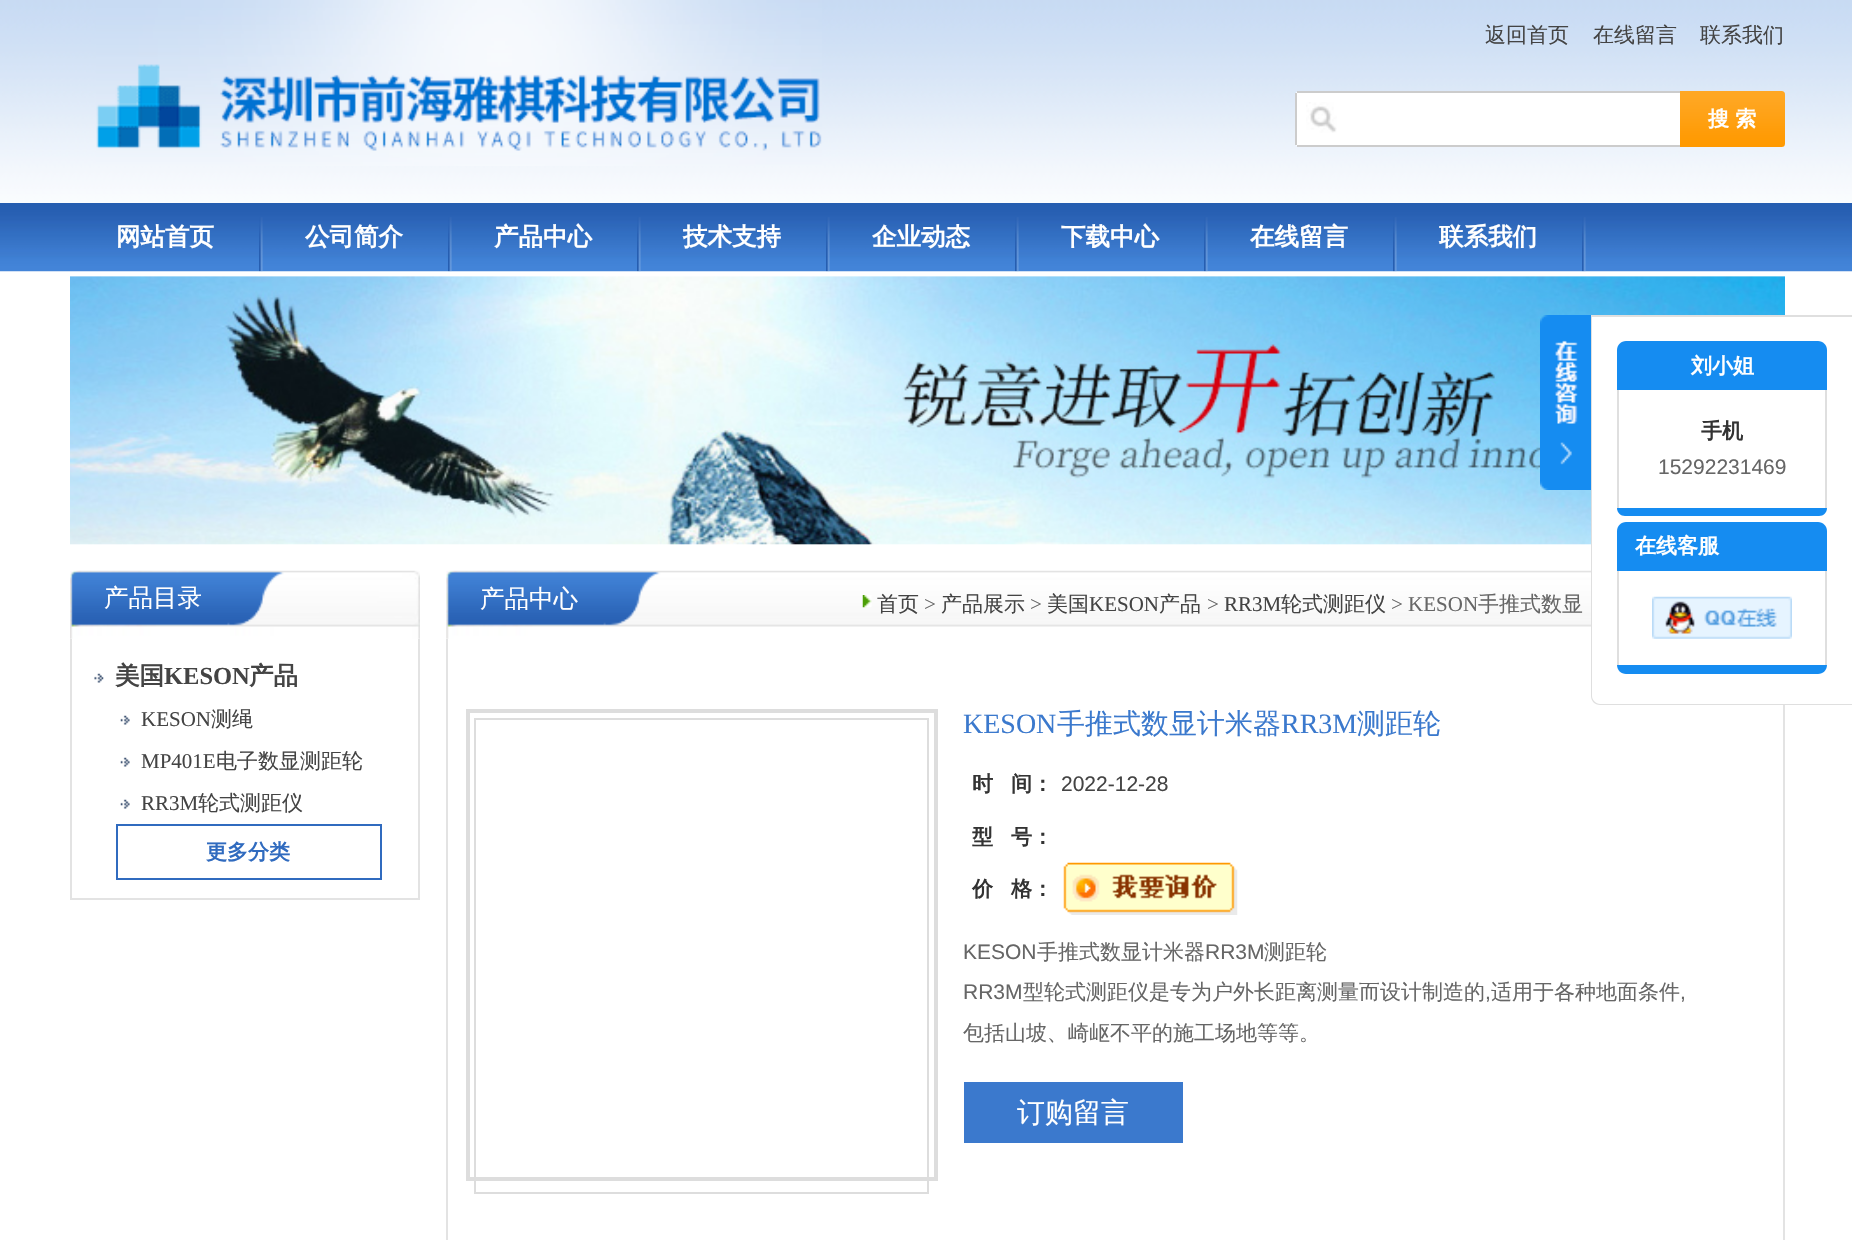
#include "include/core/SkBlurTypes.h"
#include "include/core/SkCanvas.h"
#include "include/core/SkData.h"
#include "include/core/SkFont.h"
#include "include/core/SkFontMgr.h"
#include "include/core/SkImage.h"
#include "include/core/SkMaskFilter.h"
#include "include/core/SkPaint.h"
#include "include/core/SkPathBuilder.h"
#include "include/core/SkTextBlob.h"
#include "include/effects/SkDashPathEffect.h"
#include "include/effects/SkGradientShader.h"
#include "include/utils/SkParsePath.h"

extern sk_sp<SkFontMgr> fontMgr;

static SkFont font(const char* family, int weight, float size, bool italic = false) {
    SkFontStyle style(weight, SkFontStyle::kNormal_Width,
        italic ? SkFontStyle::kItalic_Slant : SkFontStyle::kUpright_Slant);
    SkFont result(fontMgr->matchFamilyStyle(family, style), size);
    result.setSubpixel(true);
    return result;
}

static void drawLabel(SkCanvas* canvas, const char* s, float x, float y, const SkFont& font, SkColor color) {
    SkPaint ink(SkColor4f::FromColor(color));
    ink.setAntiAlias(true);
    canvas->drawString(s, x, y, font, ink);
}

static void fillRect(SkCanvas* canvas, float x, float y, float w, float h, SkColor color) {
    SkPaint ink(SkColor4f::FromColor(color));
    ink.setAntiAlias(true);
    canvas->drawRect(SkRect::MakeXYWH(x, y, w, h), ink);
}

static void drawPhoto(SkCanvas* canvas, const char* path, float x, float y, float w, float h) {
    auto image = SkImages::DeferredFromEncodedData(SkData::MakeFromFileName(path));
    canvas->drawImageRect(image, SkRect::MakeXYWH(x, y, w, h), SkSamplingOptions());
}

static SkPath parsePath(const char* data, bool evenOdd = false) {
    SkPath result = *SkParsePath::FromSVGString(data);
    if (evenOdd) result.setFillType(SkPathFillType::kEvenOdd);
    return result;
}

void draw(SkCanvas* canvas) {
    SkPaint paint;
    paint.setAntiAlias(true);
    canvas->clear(0xFFFFFFFF);
    drawPhoto(canvas, "assets/img1.png", 0, 0, 1852, 203);
    drawPhoto(canvas, "assets/img2.png", 96, 0, 726, 166);
    SkFont font1 = font("WenQuanYi Zen Hei", 500, 21);
    drawLabel(canvas, "返回首页", 1485, 42, font1, 0xFF444444);
    drawLabel(canvas, "在线留言", 1593, 42, font1, 0xFF444444);
    drawLabel(canvas, "联系我们", 1700, 42, font1, 0xFF444444);
    paint.setColor(0xFFFFFFFF);
    canvas->drawPath(parsePath("M1299 91H1680V147H1299C1297 147 1295 145 1295 143V95C1295 93 1297 91 1299 91Z"), paint);
    drawPhoto(canvas, "assets/img3.png", 1306, 102, 31, 31);
    fillRect(canvas, 1297, 91, 383, 2, 0xFFCCCCCC);
    fillRect(canvas, 1297, 145, 383, 2, 0xFFCCCCCC);
    fillRect(canvas, 1295, 93, 2, 52, 0xFFCCCCCC);
    drawPhoto(canvas, "assets/img4.png", 1680, 91, 105, 56);
    SkFont font2 = font("WenQuanYi Zen Hei", 700, 21);
    drawLabel(canvas, "搜 索", 1708, 126, font2, 0xFFFFFFFF);
    drawPhoto(canvas, "assets/img5.png", 0, 203, 1852, 69);
    drawPhoto(canvas, "assets/img6.png", 259, 217, 4, 55);
    SkFont font3 = font("WenQuanYi Zen Hei", 700, 24.5f);
    drawLabel(canvas, "网站首页", 116, 245, font3, 0xFFFFFFFF);
    drawPhoto(canvas, "assets/img7.png", 448, 217, 4, 55);
    drawLabel(canvas, "公司简介", 305, 245, font3, 0xFFFFFFFF);
    drawPhoto(canvas, "assets/img7.png", 637, 217, 4, 55);
    drawLabel(canvas, "产品中心", 494, 245, font3, 0xFFFFFFFF);
    drawPhoto(canvas, "assets/img7.png", 826, 217, 4, 55);
    drawLabel(canvas, "技术支持", 683, 245, font3, 0xFFFFFFFF);
    drawPhoto(canvas, "assets/img8.png", 1015, 217, 4, 55);
    drawLabel(canvas, "企业动态", 872, 245, font3, 0xFFFFFFFF);
    drawPhoto(canvas, "assets/img8.png", 1204, 217, 4, 55);
    drawLabel(canvas, "下载中心", 1061, 245, font3, 0xFFFFFFFF);
    drawPhoto(canvas, "assets/img7.png", 1393, 217, 4, 55);
    drawLabel(canvas, "在线留言", 1250, 245, font3, 0xFFFFFFFF);
    drawPhoto(canvas, "assets/img8.png", 1582, 217, 4, 55);
    drawLabel(canvas, "联系我们", 1439, 245, font3, 0xFFFFFFFF);
    drawPhoto(canvas, "assets/img9.png", 70, 276, 1715, 269);
    drawPhoto(canvas, "assets/img10.png", 70, 276, 1715, 269);
    drawPhoto(canvas, "assets/img11.png", 1540, 315, 51, 175);
    canvas->drawPath(parsePath("M1591 315H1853V705H1600C1595 705 1591 701 1591 696Z"), paint);
    paint.setColor(0xFFDFDFDF);
    canvas->drawPath(parsePath("M1591 315H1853V705H1600C1595 705 1591 701 1591 696ZM1592 317H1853V704H1600C1596 704 1592 700 1592 696Z", true), paint);
    paint.setColor(0xFF158CF1);
    canvas->drawPath(parsePath("M1626 341H1818C1823 341 1827 345 1827 350V390H1617V350C1617 345 1621 341 1626 341Z"), paint);
    drawLabel(canvas, "刘小姐", 1691, 373, font2, 0xFFFFFFFF);
    fillRect(canvas, 1825, 390, 2, 118, 0xFFDFDFDF);
    fillRect(canvas, 1617, 390, 2, 118, 0xFFDFDFDF);
    drawLabel(canvas, "手机", 1701, 438, font2, 0xFF333333);
    SkFont font4 = font("Liberation Sans", 400, 21);
    drawLabel(canvas, "15292231469", 1658, 474, font4, 0xFF666666);
    canvas->drawPath(parsePath("M1617 508H1827C1827 512.5 1823.5 516 1819 516H1625C1620.5 516 1617 512.5 1617 508Z"), paint);
    canvas->drawPath(parsePath("M1626 522H1818C1823 522 1827 526 1827 531V571H1617V531C1617 526 1621 522 1626 522Z"), paint);
    drawLabel(canvas, "在线客服", 1635, 553, font2, 0xFFFFFFFF);
    fillRect(canvas, 1825, 571, 2, 94, 0xFFDFDFDF);
    fillRect(canvas, 1617, 571, 2, 94, 0xFFDFDFDF);
    drawPhoto(canvas, "assets/img12.png", 1652, 596, 140, 43);
    canvas->drawPath(parsePath("M1617 665H1827C1827 670 1823 674 1818 674H1626C1621 674 1617 670 1617 665Z"), paint);
    drawPhoto(canvas, "assets/img13.png", 70, 570, 350, 69);
    SkFont font5 = font("WenQuanYi Zen Hei", 500, 24.5f);
    drawLabel(canvas, "产品目录", 104, 606, font5, 0xFFFFFFFF);
    fillRect(canvas, 418, 639, 2, 261, 0xFFE3E3E3);
    fillRect(canvas, 70, 898, 350, 2, 0xFFE3E3E3);
    fillRect(canvas, 70, 639, 2, 261, 0xFFE3E3E3);
    drawPhoto(canvas, "assets/img14.png", 94, 673, 10, 10);
    drawLabel(canvas, "美国", 115, 684, font3, 0xFF444444);
    SkFont font6 = font("Liberation Serif", 700, 24.5f);
    drawLabel(canvas, "KESON", 164, 684, font6, 0xFF444444);
    drawLabel(canvas, "产品", 249, 684, font3, 0xFF444444);
    drawPhoto(canvas, "assets/img15.png", 120, 715, 10, 10);
    SkFont font7 = font("Liberation Serif", 400, 21);
    drawLabel(canvas, "KESON", 141, 726, font7, 0xFF444444);
    drawLabel(canvas, "测绳", 211, 726, font1, 0xFF444444);
    drawPhoto(canvas, "assets/img15.png", 120, 757, 10, 10);
    drawLabel(canvas, "MP401E", 141, 768, font7, 0xFF444444);
    drawLabel(canvas, "电子数显测距轮", 216, 768, font1, 0xFF444444);
    drawPhoto(canvas, "assets/img15.png", 120, 799, 10, 10);
    drawLabel(canvas, "RR3M", 141, 810, font7, 0xFF444444);
    drawLabel(canvas, "轮式测距仪", 198, 810, font1, 0xFF444444);
    paint.setStroke(true);
    paint.setStrokeWidth(2);
    paint.setColor(0xFF306BBF);
    canvas->drawRect(SkRect::MakeXYWH(117, 825, 264, 54), paint);
    drawLabel(canvas, "更多分类", 206, 859, font2, 0xFF306BBF);
    drawPhoto(canvas, "assets/img16.png", 446, 570, 1145, 69);
    drawLabel(canvas, "产品中心", 480, 607, font5, 0xFFFFFFFF);
    drawPhoto(canvas, "assets/img17.png", 862, 595, 10, 13);
    drawLabel(canvas, "首页", 877, 611, font1, 0xFF444444);
    drawLabel(canvas, ">", 924, 611, font7, 0xFF666666);
    drawLabel(canvas, "产品展示", 941, 611, font1, 0xFF444444);
    drawLabel(canvas, ">", 1030, 611, font7, 0xFF666666);
    drawLabel(canvas, "美国", 1047, 611, font1, 0xFF444444);
    drawLabel(canvas, "KESON", 1089, 611, font7, 0xFF444444);
    drawLabel(canvas, "产品", 1159, 611, font1, 0xFF444444);
    drawLabel(canvas, ">", 1207, 611, font7, 0xFF666666);
    drawLabel(canvas, "RR3M", 1224, 611, font7, 0xFF444444);
    drawLabel(canvas, "轮式测距仪", 1281, 611, font1, 0xFF444444);
    drawLabel(canvas, "> KESON", 1391, 611, font7, 0xFF666666);
    drawLabel(canvas, "手推式数显", 1478, 611, font1, 0xFF666666);
    fillRect(canvas, 1783, 705, 2, 535, 0xFFE3E3E3);
    fillRect(canvas, 446, 639, 2, 601, 0xFFE3E3E3);
    paint.setStrokeWidth(4);
    paint.setColor(0xFFDDDDDD);
    canvas->drawRect(SkRect::MakeXYWH(468, 711, 468, 468), paint);
    paint.setStrokeWidth(2);
    canvas->drawRect(SkRect::MakeXYWH(475, 719, 453, 474), paint);
    SkFont font8 = font("Liberation Serif", 400, 28);
    drawLabel(canvas, "KESON", 963, 733, font8, 0xFF3B79CD);
    SkFont font9 = font("WenQuanYi Zen Hei", 500, 28);
    drawLabel(canvas, "手推式数显计米器", 1057, 733, font9, 0xFF3B79CD);
    drawLabel(canvas, "RR3M", 1281, 733, font8, 0xFF3B79CD);
    drawLabel(canvas, "测距轮", 1357, 733, font9, 0xFF3B79CD);
    drawLabel(canvas, "时", 972, 791, font2, 0xFF333333);
    drawLabel(canvas, "间：", 1011, 791, font2, 0xFF333333);
    drawLabel(canvas, "2022-12-28", 1061, 791, font4, 0xFF444444);
    drawLabel(canvas, "型", 972, 844, font2, 0xFF333333);
    drawLabel(canvas, "号：", 1011, 844, font2, 0xFF333333);
    drawLabel(canvas, "价", 972, 896, font2, 0xFF333333);
    drawLabel(canvas, "格：", 1011, 896, font2, 0xFF333333);
    drawPhoto(canvas, "assets/img18.png", 1063, 862, 175, 53);
    drawLabel(canvas, "KESON", 963, 959, font4, 0xFF666666);
    drawLabel(canvas, "手推式数显计米器", 1037, 959, font1, 0xFF666666);
    drawLabel(canvas, "RR3M", 1205, 959, font4, 0xFF666666);
    drawLabel(canvas, "测距轮", 1264, 959, font1, 0xFF666666);
    drawLabel(canvas, "RR3M", 963, 999, font4, 0xFF666666);
    drawLabel(canvas, "型轮式测距仪是专为户外长距离测量而设计制造的", 1023, 999, font1, 0xFF666666);
    drawLabel(canvas, ",", 1485, 999, font4, 0xFF666666);
    drawLabel(canvas, "适用于各种地面条件", 1491, 999, font1, 0xFF666666);
    drawLabel(canvas, ",", 1680, 999, font4, 0xFF666666);
    drawLabel(canvas, "包括山坡、崎岖不平的施工场地等等。", 963, 1040, font1, 0xFF666666);
    fillRect(canvas, 964, 1082, 219, 61, 0xFF3B79CD);
    drawLabel(canvas, "订购留言", 1017, 1122, font9, 0xFFFFFFFF);
}
